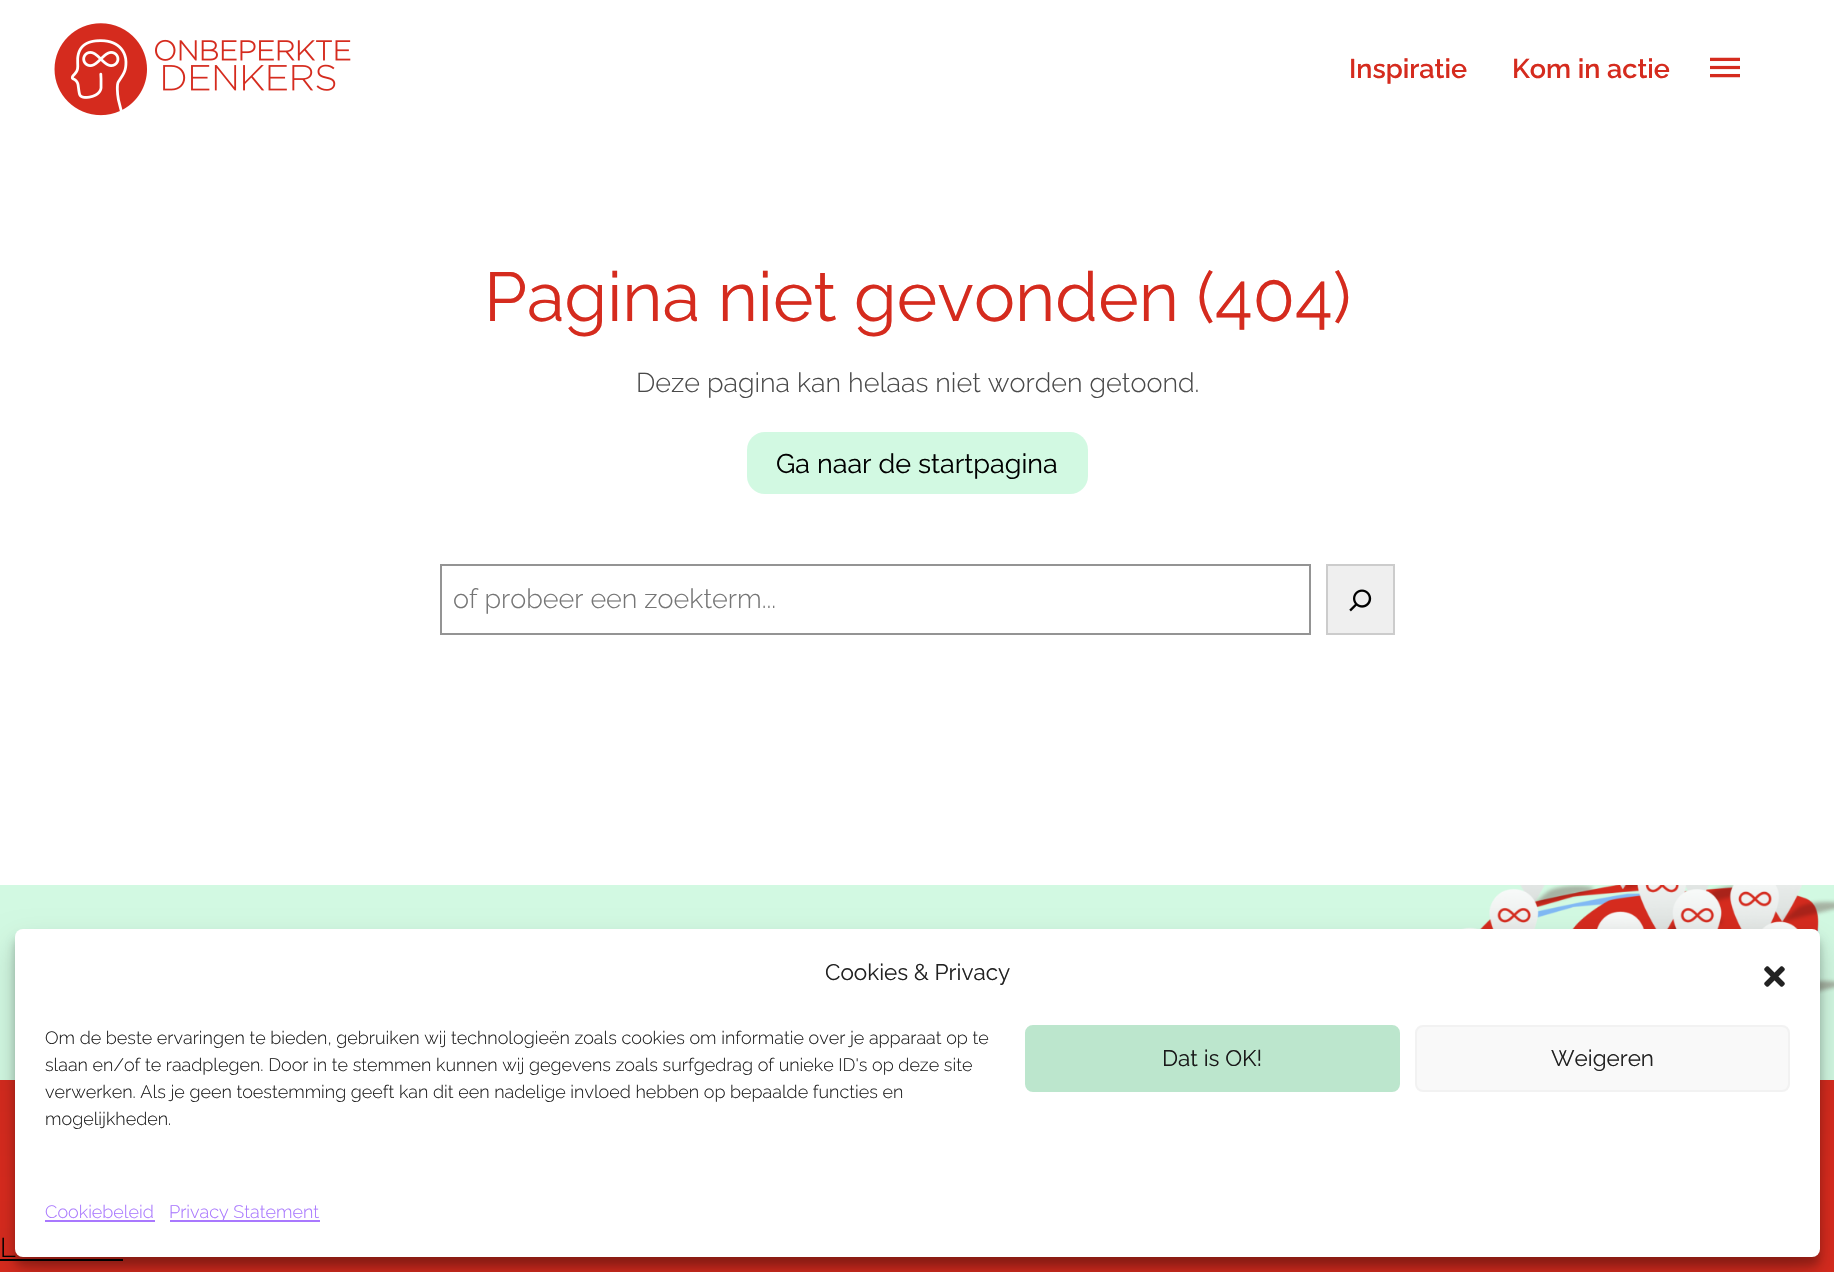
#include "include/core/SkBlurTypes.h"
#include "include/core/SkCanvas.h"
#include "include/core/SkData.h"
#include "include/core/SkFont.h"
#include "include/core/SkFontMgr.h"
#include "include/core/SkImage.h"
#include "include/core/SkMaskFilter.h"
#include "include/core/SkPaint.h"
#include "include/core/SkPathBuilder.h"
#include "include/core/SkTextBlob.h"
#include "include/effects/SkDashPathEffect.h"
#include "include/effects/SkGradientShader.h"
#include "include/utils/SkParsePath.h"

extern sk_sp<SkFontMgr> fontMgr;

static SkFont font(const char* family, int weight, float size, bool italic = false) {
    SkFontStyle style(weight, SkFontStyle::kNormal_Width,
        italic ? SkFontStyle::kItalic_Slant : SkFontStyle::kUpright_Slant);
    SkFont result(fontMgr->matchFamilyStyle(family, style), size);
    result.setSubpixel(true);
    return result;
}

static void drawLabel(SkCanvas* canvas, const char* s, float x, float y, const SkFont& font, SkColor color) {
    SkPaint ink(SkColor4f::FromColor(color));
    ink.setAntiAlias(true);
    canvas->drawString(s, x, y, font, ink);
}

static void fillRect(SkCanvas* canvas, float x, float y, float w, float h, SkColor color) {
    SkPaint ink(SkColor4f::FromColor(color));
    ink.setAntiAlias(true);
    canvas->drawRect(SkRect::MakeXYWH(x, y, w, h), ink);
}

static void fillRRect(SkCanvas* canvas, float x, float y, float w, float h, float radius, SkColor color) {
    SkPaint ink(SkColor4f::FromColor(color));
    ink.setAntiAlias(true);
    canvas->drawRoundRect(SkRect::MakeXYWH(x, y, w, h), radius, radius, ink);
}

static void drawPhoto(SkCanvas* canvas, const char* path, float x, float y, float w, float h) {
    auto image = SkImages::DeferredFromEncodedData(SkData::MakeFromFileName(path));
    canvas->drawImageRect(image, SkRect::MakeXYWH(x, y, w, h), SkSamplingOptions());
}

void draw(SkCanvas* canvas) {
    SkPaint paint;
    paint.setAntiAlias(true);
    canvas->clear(0xFFFFFFFF);
    drawPhoto(canvas, "assets/img1.png", 54, 23, 297, 93);
    SkFont font1 = font("Raleway", 600, 27);
    drawLabel(canvas, "Inspiratie", 1349, 78, font1, 0xFFD52B1E);
    drawLabel(canvas, "Kom in actie", 1512, 78, font1, 0xFFD52B1E);
    drawPhoto(canvas, "assets/img2.png", 1710, 57, 30, 21);
    SkFont font2 = font("Raleway", 400, 69);
    drawLabel(canvas, "Pagina niet gevonden (404)", 484, 321, font2, 0xFFD52B1E);
    SkFont font3 = font("Raleway", 300, 27);
    drawLabel(canvas, "Deze pagina kan helaas niet worden getoond.", 636, 392, font3, 0xFF4A4A4A);
    fillRRect(canvas, 747, 432, 341, 62, 18, 0xFFD2F9E2);
    SkFont font4 = font("Raleway", 400, 27);
    drawLabel(canvas, "Ga naar de startpagina", 776, 473, font4, 0xFF010101);
    paint.setStroke(true);
    paint.setStrokeWidth(2);
    paint.setColor(0xFF949494);
    canvas->drawRect(SkRect::MakeXYWH(441, 565, 869, 69), paint);
    drawLabel(canvas, "of probeer een zoekterm...", 453, 608, font3, 0xFF757575);
    paint.setStroke(false);
    paint.setColor(0xFFEFEFEF);
    canvas->drawRect(SkRect::MakeXYWH(1327, 565, 67, 69), paint);
    paint.setStroke(true);
    paint.setColor(0xFFCCCCCC);
    canvas->drawRect(SkRect::MakeXYWH(1327, 565, 67, 69), paint);
    drawPhoto(canvas, "assets/img3.png", 1349, 589, 23, 23);
    fillRect(canvas, 0, 885, 1834, 195, 0xFFD2F9E2);
    drawPhoto(canvas, "assets/img4.png", 1461, 885, 373, 109);
    paint.setStroke(false);
    {
        const SkColor colors[] = {0xFFD52B1E, 0xFFDA2B1E, 0xFFD52B1E};
        const float stops[] = {0, 0.45f, 1};
        const SkPoint ends[] = {{917, 1080}, {917, 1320}};
        paint.setShader(SkGradientShader::MakeLinear(ends, colors, stops, 3, SkTileMode::kClamp));
        paint.setAlpha(255);
    }
    canvas->drawRect(SkRect::MakeXYWH(0, 1080, 1834, 192), paint);
    fillRect(canvas, 0, 1259, 123, 2, 0xFF000000);
    paint.setShader(nullptr);
    paint.setColor(0x3B000000);
    paint.setMaskFilter(SkMaskFilter::MakeBlur(kNormal_SkBlurStyle, 4.5f));
    canvas->drawRoundRect(SkRect::MakeXYWH(15, 938, 1805, 328), 8, 8, paint);
    paint.setMaskFilter(nullptr);
    paint.setColor(0x30000000);
    paint.setMaskFilter(SkMaskFilter::MakeBlur(kNormal_SkBlurStyle, 15));
    canvas->drawRoundRect(SkRect::MakeXYWH(15, 944, 1805, 328), 8, 8, paint);
    paint.setMaskFilter(nullptr);
    drawLabel(canvas, "L", 0, 1257, font3, 0xFF010101);
    fillRRect(canvas, 15, 929, 1805, 328, 8, 0xFFFFFFFF);
    SkFont font5 = font("Raleway", 400, 22.5f);
    drawLabel(canvas, "Cookies & Privacy", 825, 980, font5, 0xFF222222);
    drawPhoto(canvas, "assets/img5.png", 1764, 966, 21, 21);
    SkFont font6 = font("Raleway", 300, 18);
    drawLabel(canvas, "Om de beste ervaringen te bieden, gebruiken wij technologieën zoals cookies om informatie over je apparaat op te", 45, 1044, font6, 0xFF222222);
    drawLabel(canvas, "slaan en/of te raadplegen. Door in te stemmen kunnen wij gegevens zoals surfgedrag of unieke ID's op deze site", 45, 1071, font6, 0xFF222222);
    drawLabel(canvas, "verwerken. Als je geen toestemming geeft kan dit een nadelige invloed hebben op bepaalde functies en", 45, 1098, font6, 0xFF222222);
    drawLabel(canvas, "mogelijkheden.", 45, 1125, font6, 0xFF222222);
    paint.setColor(0xFFBCE6CD);
    canvas->drawRoundRect(SkRect::MakeXYWH(1026, 1026, 373, 65), 7, 7, paint);
    paint.setStroke(true);
    canvas->drawRoundRect(SkRect::MakeXYWH(1026, 1026, 373, 65), 7, 7, paint);
    drawLabel(canvas, "Dat is OK!", 1162, 1066, font5, 0xFF1A1A1A);
    paint.setStroke(false);
    paint.setColor(0xFFF9F9F9);
    canvas->drawRoundRect(SkRect::MakeXYWH(1416, 1026, 373, 65), 7, 7, paint);
    paint.setStroke(true);
    paint.setColor(0xFFF2F2F2);
    canvas->drawRoundRect(SkRect::MakeXYWH(1416, 1026, 373, 65), 7, 7, paint);
    drawLabel(canvas, "Weigeren", 1551, 1066, font5, 0xFF222222);
    drawLabel(canvas, "Cookiebeleid", 45, 1218, font6, 0xFFA978FE);
    fillRect(canvas, 45, 1220, 110, 2, 0xFFA978FE);
    fillRect(canvas, 170, 1220, 150, 2, 0xFFA978FE);
    drawLabel(canvas, "Privacy Statement", 169, 1218, font6, 0xFFA978FE);
}
